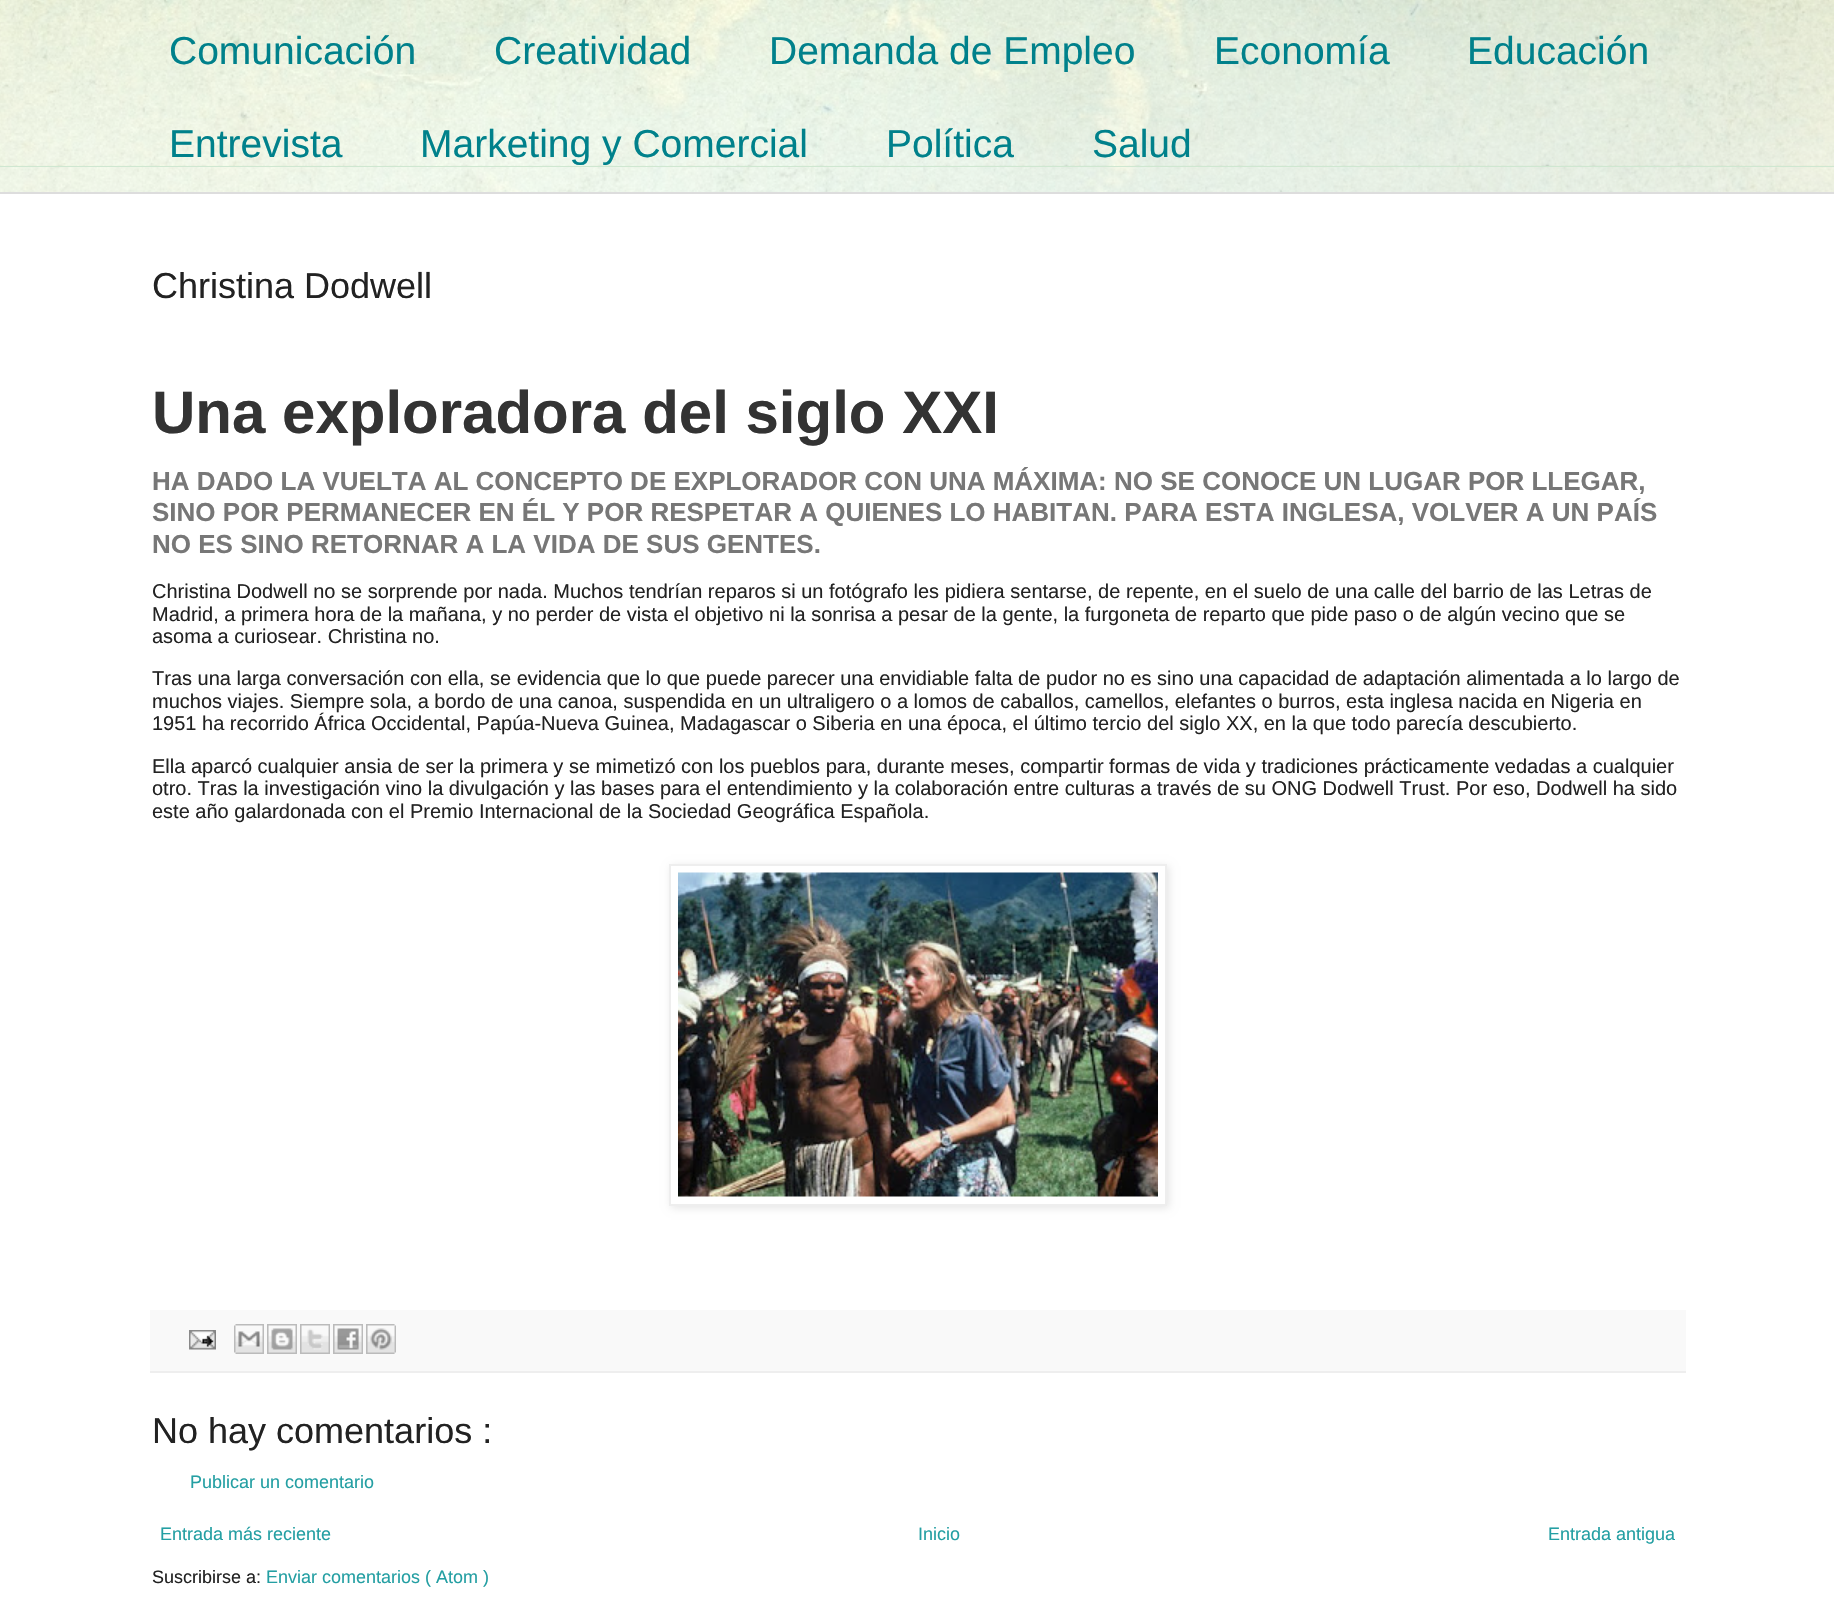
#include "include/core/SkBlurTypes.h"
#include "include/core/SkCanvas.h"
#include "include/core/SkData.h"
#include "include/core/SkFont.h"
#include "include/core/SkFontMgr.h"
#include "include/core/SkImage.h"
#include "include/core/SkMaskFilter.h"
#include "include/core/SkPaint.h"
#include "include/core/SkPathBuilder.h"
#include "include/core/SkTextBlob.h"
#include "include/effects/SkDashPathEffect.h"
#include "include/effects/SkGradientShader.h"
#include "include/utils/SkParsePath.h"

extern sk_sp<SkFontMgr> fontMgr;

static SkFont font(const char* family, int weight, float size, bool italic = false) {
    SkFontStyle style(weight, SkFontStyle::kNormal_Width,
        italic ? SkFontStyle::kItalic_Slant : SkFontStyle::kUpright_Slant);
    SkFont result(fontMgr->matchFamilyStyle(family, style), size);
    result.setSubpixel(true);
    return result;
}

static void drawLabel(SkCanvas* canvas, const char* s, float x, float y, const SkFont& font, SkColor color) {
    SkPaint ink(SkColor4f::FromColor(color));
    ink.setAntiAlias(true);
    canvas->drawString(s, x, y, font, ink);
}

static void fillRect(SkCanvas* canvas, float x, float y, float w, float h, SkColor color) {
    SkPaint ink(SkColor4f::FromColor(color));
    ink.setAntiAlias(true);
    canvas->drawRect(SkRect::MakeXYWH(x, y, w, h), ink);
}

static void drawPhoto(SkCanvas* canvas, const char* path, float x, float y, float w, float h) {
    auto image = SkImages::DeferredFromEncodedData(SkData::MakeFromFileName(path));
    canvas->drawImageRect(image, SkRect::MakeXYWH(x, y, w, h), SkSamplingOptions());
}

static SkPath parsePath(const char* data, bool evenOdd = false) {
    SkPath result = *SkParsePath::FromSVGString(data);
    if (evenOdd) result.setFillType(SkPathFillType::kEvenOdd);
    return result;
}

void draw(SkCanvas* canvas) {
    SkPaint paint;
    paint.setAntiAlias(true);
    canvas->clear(0xFFFFFFFF);
    drawPhoto(canvas, "assets/img1.png", 0, 167, 1834, 25);
    fillRect(canvas, 0, 166, 1834, 1, 0xFFCFE7D1);
    drawPhoto(canvas, "assets/img2.png", 0, 0, 1834, 166);
    drawPhoto(canvas, "assets/img3.png", 0, 0, 1834, 166);
    SkFont font1 = font("Liberation Sans", 400, 39);
    drawLabel(canvas, "Comunicación", 169, 64, font1, 0xFF00818B);
    drawLabel(canvas, "Creatividad", 494, 64, font1, 0xFF00818B);
    drawLabel(canvas, "Demanda de Empleo", 769, 64, font1, 0xFF00818B);
    drawLabel(canvas, "Economía", 1214, 64, font1, 0xFF00818B);
    drawLabel(canvas, "Educación", 1467, 64, font1, 0xFF00818B);
    drawLabel(canvas, "Entrevista", 169, 157, font1, 0xFF00818B);
    drawLabel(canvas, "Marketing y Comercial", 420, 157, font1, 0xFF00818B);
    drawLabel(canvas, "Política", 886, 157, font1, 0xFF00818B);
    drawLabel(canvas, "Salud", 1092, 157, font1, 0xFF00818B);
    fillRect(canvas, 0, 192, 1834, 2, 0xFFDDDDDD);
    SkFont font2 = font("Liberation Sans", 400, 36);
    drawLabel(canvas, "Christina Dodwell", 152, 298, font2, 0xFF222222);
    SkFont font3 = font("Liberation Sans", 700, 60);
    drawLabel(canvas, "Una exploradora del siglo XXI", 152, 433, font3, 0xFF333333);
    SkFont font4 = font("Liberation Sans", 700, 26);
    drawLabel(canvas, "HA DADO LA VUELTA AL CONCEPTO DE EXPLORADOR CON UNA MÁXIMA: NO SE CONOCE UN LUGAR POR LLEGAR,", 152, 490, font4, 0xFF777777);
    drawLabel(canvas, "SINO POR PERMANECER EN ÉL Y POR RESPETAR A QUIENES LO HABITAN. PARA ESTA INGLESA, VOLVER A UN PAÍS", 152, 521, font4, 0xFF777777);
    drawLabel(canvas, "NO ES SINO RETORNAR A LA VIDA DE SUS GENTES.", 152, 553, font4, 0xFF777777);
    SkFont font5 = font("Liberation Sans", 400, 20);
    drawLabel(canvas, "Christina Dodwell no se sorprende por nada. Muchos tendrían reparos si un fotógrafo les pidiera sentarse, de repente, en el suelo de una calle del barrio de las Letras de", 152, 598, font5, 0xFF222222);
    drawLabel(canvas, "Madrid, a primera hora de la mañana, y no perder de vista el objetivo ni la sonrisa a pesar de la gente, la furgoneta de reparto que pide paso o de algún vecino que se", 152, 621, font5, 0xFF222222);
    drawLabel(canvas, "asoma a curiosear. Christina no.", 152, 643, font5, 0xFF222222);
    drawLabel(canvas, "Tras una larga conversación con ella, se evidencia que lo que puede parecer una envidiable falta de pudor no es sino una capacidad de adaptación alimentada a lo largo de", 152, 685, font5, 0xFF222222);
    drawLabel(canvas, "muchos viajes. Siempre sola, a bordo de una canoa, suspendida en un ultraligero o a lomos de caballos, camellos, elefantes o burros, esta inglesa nacida en Nigeria en", 152, 708, font5, 0xFF222222);
    drawLabel(canvas, "1951 ha recorrido África Occidental, Papúa-Nueva Guinea, Madagascar o Siberia en una época, el último tercio del siglo XX, en la que todo parecía descubierto.", 152, 730, font5, 0xFF222222);
    drawLabel(canvas, "Ella aparcó cualquier ansia de ser la primera y se mimetizó con los pueblos para, durante meses, compartir formas de vida y tradiciones prácticamente vedadas a cualquier", 152, 773, font5, 0xFF222222);
    drawLabel(canvas, "otro. Tras la investigación vino la divulgación y las bases para el entendimiento y la colaboración entre culturas a través de su ONG Dodwell Trust. Por eso, Dodwell ha sido", 152, 795, font5, 0xFF222222);
    drawLabel(canvas, "este año galardonada con el Premio Internacional de la Sociedad Geográfica Española.", 152, 818, font5, 0xFF222222);
    fillRect(canvas, 555, 777, 1084, 1, 0xFFFFFFFF);
    canvas->save();
    canvas->clipPath(parsePath("M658 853H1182V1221H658ZM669 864H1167V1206H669Z", true), true);
    paint.setColor(0x1A000000);
    paint.setMaskFilter(SkMaskFilter::MakeBlur(kNormal_SkBlurStyle, 4));
    canvas->drawRect(SkRect::MakeXYWH(671, 866, 498, 342), paint);
    paint.setMaskFilter(nullptr);
    canvas->restore();
    paint.setStroke(true);
    paint.setStrokeWidth(2);
    paint.setColor(0xFFEEEEEE);
    canvas->drawRect(SkRect::MakeXYWH(670, 865, 496, 340), paint);
    drawPhoto(canvas, "assets/img4.png", 678, 872, 480, 325);
    fillRect(canvas, 150, 1310, 1536, 61, 0xFFF9F9F9);
    fillRect(canvas, 150, 1371, 1536, 2, 0xFFEEEEEE);
    drawPhoto(canvas, "assets/img5.png", 189, 1330, 27, 20);
    drawPhoto(canvas, "assets/img6.png", 234, 1324, 30, 30);
    drawPhoto(canvas, "assets/img7.png", 267, 1324, 30, 30);
    drawPhoto(canvas, "assets/img8.png", 300, 1324, 30, 30);
    drawPhoto(canvas, "assets/img9.png", 333, 1324, 30, 30);
    drawPhoto(canvas, "assets/img10.png", 366, 1324, 30, 30);
    drawLabel(canvas, "No hay comentarios :", 152, 1443, font2, 0xFF222222);
    SkFont font6 = font("Liberation Sans", 400, 18);
    drawLabel(canvas, "Publicar un comentario", 190, 1488, font6, 0xFF249FA3);
    drawLabel(canvas, "Entrada más reciente", 160, 1540, font6, 0xFF249FA3);
    drawLabel(canvas, "Inicio", 918, 1540, font6, 0xFF249FA3);
    drawLabel(canvas, "Entrada antigua", 1548, 1540, font6, 0xFF249FA3);
    drawLabel(canvas, "Suscribirse a:", 152, 1583, font6, 0xFF222222);
    drawLabel(canvas, "Enviar comentarios ( Atom )", 266, 1583, font6, 0xFF249FA3);
}
